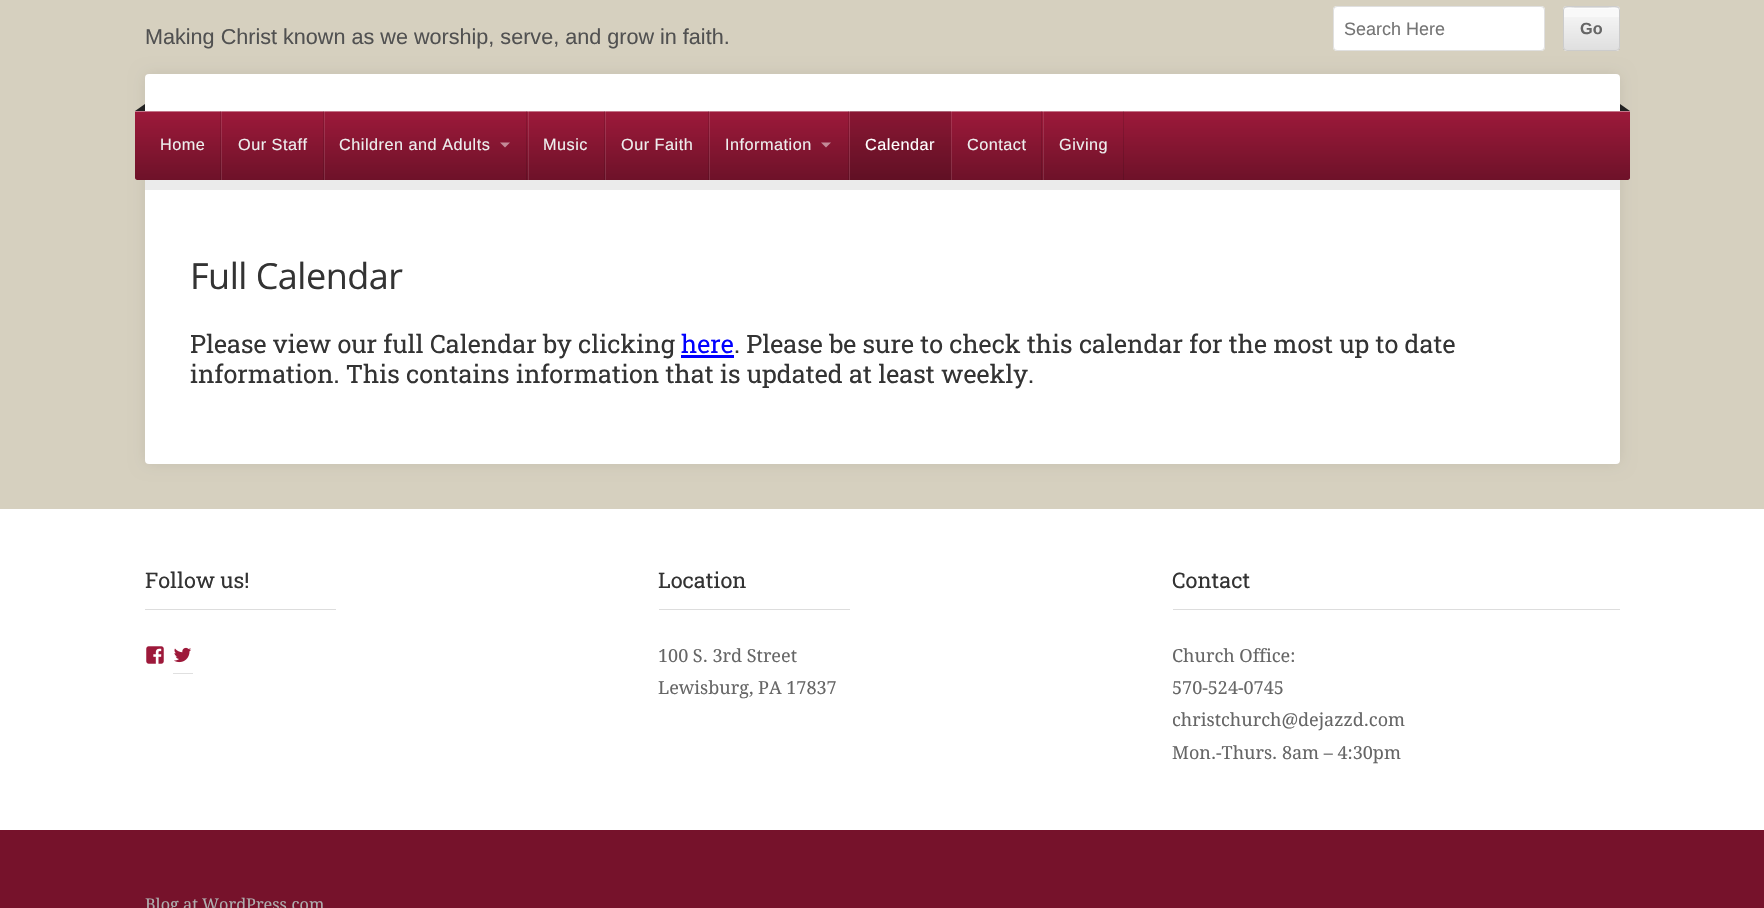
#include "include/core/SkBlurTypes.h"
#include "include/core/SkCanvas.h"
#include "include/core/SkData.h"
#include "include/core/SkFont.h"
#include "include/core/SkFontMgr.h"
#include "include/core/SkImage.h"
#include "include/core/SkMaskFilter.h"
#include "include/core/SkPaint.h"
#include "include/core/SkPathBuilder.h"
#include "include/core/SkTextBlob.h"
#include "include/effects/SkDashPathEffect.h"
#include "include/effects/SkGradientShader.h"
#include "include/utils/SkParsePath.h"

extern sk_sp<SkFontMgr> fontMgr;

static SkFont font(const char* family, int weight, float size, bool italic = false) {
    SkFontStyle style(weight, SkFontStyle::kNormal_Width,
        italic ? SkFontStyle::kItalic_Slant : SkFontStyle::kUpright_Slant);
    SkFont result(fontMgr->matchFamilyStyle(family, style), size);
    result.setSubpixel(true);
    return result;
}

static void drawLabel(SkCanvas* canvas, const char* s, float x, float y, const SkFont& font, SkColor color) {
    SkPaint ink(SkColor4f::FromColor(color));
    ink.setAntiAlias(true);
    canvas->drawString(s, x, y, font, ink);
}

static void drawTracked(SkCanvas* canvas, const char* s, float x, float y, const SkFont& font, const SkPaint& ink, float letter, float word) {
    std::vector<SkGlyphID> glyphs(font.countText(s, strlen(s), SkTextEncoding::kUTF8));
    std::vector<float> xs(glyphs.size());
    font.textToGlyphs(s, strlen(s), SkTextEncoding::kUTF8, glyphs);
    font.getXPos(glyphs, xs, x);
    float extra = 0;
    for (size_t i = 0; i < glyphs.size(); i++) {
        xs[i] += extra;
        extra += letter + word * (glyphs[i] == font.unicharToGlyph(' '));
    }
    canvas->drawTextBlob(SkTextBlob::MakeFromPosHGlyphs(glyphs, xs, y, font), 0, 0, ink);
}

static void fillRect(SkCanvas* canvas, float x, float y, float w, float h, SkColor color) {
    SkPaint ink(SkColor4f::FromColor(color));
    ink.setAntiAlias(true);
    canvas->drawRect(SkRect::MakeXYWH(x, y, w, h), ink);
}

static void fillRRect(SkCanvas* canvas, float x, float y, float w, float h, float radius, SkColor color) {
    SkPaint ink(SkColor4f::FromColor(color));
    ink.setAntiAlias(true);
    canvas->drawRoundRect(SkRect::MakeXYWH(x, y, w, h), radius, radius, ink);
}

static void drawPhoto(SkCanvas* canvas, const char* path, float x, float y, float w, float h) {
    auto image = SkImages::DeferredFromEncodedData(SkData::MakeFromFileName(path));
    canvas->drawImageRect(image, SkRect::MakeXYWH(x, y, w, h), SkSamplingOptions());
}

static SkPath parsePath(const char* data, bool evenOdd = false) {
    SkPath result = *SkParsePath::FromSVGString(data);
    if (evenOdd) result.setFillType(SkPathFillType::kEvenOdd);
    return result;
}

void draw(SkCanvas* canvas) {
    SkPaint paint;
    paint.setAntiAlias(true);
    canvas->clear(0xFFD6D0BF);
    SkFont font1 = font("Liberation Sans", 400, 21.6f);
    drawLabel(canvas, "Making Christ known as we worship, serve, and grow in faith.", 145, 44, font1, 0xFF515151);
    paint.setColor(0x14000000);
    paint.setMaskFilter(SkMaskFilter::MakeBlur(kNormal_SkBlurStyle, 7.5f));
    canvas->drawRoundRect(SkRect::MakeXYWH(145, 74, 1475, 390), 4, 4, paint);
    paint.setMaskFilter(nullptr);
    fillRRect(canvas, 1333, 6, 212, 45, 4, 0xFFFFFFFF);
    paint.setStroke(true);
    paint.setStrokeWidth(1);
    paint.setColor(0x1F000000);
    canvas->drawRoundRect(SkRect::MakeXYWH(1333.5f, 6.5f, 211, 44), 3.5f, 3.5f, paint);
    SkFont font2 = font("Liberation Sans", 400, 18);
    drawLabel(canvas, "Search Here", 1344, 35, font2, 0xFF757575);
    fillRRect(canvas, 1563, 6, 57, 45, 4, 0xFFF9F9F9);
    canvas->save();
    canvas->clipPath(parsePath("M1567 6H1616C1618 6 1620 8 1620 10V47C1620 49 1618 51 1616 51H1567C1565 51 1563 49 1563 47V10C1563 8 1565 6 1567 6Z"), true);
    paint.setStroke(false);
    {
        const SkColor colors[] = {0x00000000, 0x1A000000};
        const float stops[] = {0, 1};
        const SkPoint ends[] = {{1591, -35}, {1591, 7.5f}};
        paint.setShader(SkGradientShader::MakeLinear(ends, colors, stops, 2, SkTileMode::kClamp));
        paint.setAlpha(255);
    }
    canvas->drawRect(SkRect::MakeXYWH(1563, 6, 57, 2), paint);
    canvas->restore();
    {
        const SkColor colors[] = {0x00000000, 0x1A000000};
        const float stops[] = {0, 1};
        const SkPoint ends[] = {{1591, 7.5f}, {1591, 50}};
        paint.setShader(SkGradientShader::MakeLinear(ends, colors, stops, 2, SkTileMode::kClamp));
        paint.setAlpha(255);
    }
    canvas->drawRect(SkRect::MakeXYWH(1563, 17, 57, 33), paint);
    paint.setShader(nullptr);
    paint.setColor(0xFFFCFCFC);
    canvas->drawPath(parsePath("M1566 9H1616C1618 9 1619 10 1619 11C1619 6 1611 8 1608 8H1575C1572 8 1564 6 1564 11C1564 10 1565 9 1566 9Z"), paint);
    paint.setStroke(true);
    paint.setColor(0xFFCCCCCC);
    canvas->drawRoundRect(SkRect::MakeXYWH(1563.5f, 6.5f, 56, 44), 3.5f, 3.5f, paint);
    SkFont font3 = font("Liberation Sans", 700, 16.25f);
    drawLabel(canvas, "Go", 1580, 34, font3, 0xFF666666);
    fillRRect(canvas, 145, 74, 1475, 390, 4, 0xFFFFFFFF);
    paint.setStroke(false);
    paint.setColor(0xFF9D193A);
    canvas->drawPath(parsePath("M135 111H1630V177.5C1630 179 1629 180 1627.5 180H137.5C136 180 135 179 135 177.5Z"), paint);
    {
        const SkColor colors[] = {0x00000000, 0x4D000000};
        const float stops[] = {0, 1};
        const SkPoint ends[] = {{883, 111}, {883, 180}};
        paint.setShader(SkGradientShader::MakeLinear(ends, colors, stops, 2, SkTileMode::kClamp));
        paint.setAlpha(255);
    }
    canvas->drawPath(parsePath("M135 111H1630V177.5C1630 179 1629 180 1627.5 180H137.5C136 180 135 179 135 177.5Z"), paint);
    fillRect(canvas, 135, 111, 1495, 1, 0xFFC47589);
    paint.setShader(nullptr);
    paint.setColor(0xFF222222);
    canvas->drawPath(parsePath("M145 104V111H135Z"), paint);
    canvas->drawPath(parsePath("M1620 111V104L1630 111Z"), paint);
    fillRect(canvas, 220, 111, 1, 69, 0x1F000000);
    SkFont font4 = font("Liberation Sans", 400, 16.25f);
    paint.setColor(0xFFEEEEEE);
    drawTracked(canvas, "Home", 160, 150, font4, paint, 0.5f, 0);
    fillRect(canvas, 323, 111, 1, 69, 0x1F000000);
    fillRect(canvas, 221, 111, 1, 69, 0x1FFFFFFF);
    drawTracked(canvas, "Our Staff", 238, 150, font4, paint, 0.5f, 0);
    fillRect(canvas, 526, 111, 1, 69, 0x1F000000);
    fillRect(canvas, 324, 111, 1, 69, 0x1FFFFFFF);
    drawTracked(canvas, "Children and Adults", 339, 150, font4, paint, 0.5f, 0);
    paint.setColor(0xFFC38A98);
    canvas->drawPath(parsePath("M500 142.5H510L505 147.5Z"), paint);
    fillRect(canvas, 604, 111, 1, 69, 0x1F000000);
    fillRect(canvas, 528, 111, 1, 69, 0x1FFFFFFF);
    paint.setColor(0xFFEEEEEE);
    drawTracked(canvas, "Music", 543, 150, font4, paint, 0.5f, 0);
    fillRect(canvas, 708, 111, 1, 69, 0x1F000000);
    fillRect(canvas, 605, 111, 1, 69, 0x1FFFFFFF);
    drawTracked(canvas, "Our Faith", 621, 150, font4, paint, 0.5f, 0);
    fillRect(canvas, 848, 111, 1, 69, 0x1F000000);
    fillRect(canvas, 709, 111, 1, 69, 0x1FFFFFFF);
    drawTracked(canvas, "Information", 725, 150, font4, paint, 0.5f, 0);
    paint.setColor(0xFFC38A98);
    canvas->drawPath(parsePath("M821 142.5H831L826 147.5Z"), paint);
    fillRect(canvas, 950, 111, 1, 69, 0x1F000000);
    fillRect(canvas, 849, 111, 1, 69, 0x1FFFFFFF);
    fillRect(canvas, 850, 111, 100, 69, 0x1F000000);
    paint.setColor(0xFFFFFFFF);
    drawTracked(canvas, "Calendar", 865, 150, font4, paint, 0.5f, 0);
    fillRect(canvas, 1041, 111, 1, 69, 0x1F000000);
    fillRect(canvas, 951, 111, 1, 69, 0x1FFFFFFF);
    paint.setColor(0xFFEEEEEE);
    drawTracked(canvas, "Contact", 967, 150, font4, paint, 0.5f, 0);
    fillRect(canvas, 1123, 111, 1, 69, 0x1F000000);
    fillRect(canvas, 1043, 111, 1, 69, 0x1FFFFFFF);
    drawTracked(canvas, "Giving", 1059, 150, font4, paint, 0.5f, 0);
    fillRect(canvas, 145, 180, 1475, 10, 0xFFEBEBEB);
    SkFont font5 = font("Open Sans", 400, 36);
    paint.setColor(0xFF333333);
    drawTracked(canvas, "Full Calendar", 190, 289, font5, paint, -0.5f, 0);
    SkFont font6 = font("Roboto Slab", 400, 25.2f);
    drawLabel(canvas, "Please view our full Calendar by clicking", 190, 353, font6, 0xFF333333);
    drawLabel(canvas, "here", 681, 353, font6, 0xFF0000FF);
    fillRect(canvas, 681, 355, 53, 3, 0xFF0000FF);
    drawLabel(canvas, ". Please be sure to check this calendar for the most up to date", 734, 353, font6, 0xFF333333);
    drawLabel(canvas, "information. This contains information that is updated at least weekly.", 190, 383, font6, 0xFF333333);
    fillRect(canvas, 0, 509, 1764, 321, 0xFFFFFFFF);
    fillRect(canvas, 145, 609, 191, 1, 0xFFDDDDDD);
    SkFont font7 = font("Roboto Slab", 400, 21.6f);
    drawLabel(canvas, "Follow us!", 145, 588, font7, 0xFF333333);
    drawPhoto(canvas, "assets/img1.png", 146, 646, 18, 18);
    fillRect(canvas, 173, 673, 20, 1, 0xFFE0E0E0);
    drawPhoto(canvas, "assets/img2.png", 174, 647, 18, 16);
    fillRect(canvas, 659, 609, 191, 1, 0xFFDDDDDD);
    drawLabel(canvas, "Location", 658, 588, font7, 0xFF333333);
    SkFont font8 = font("Droid Serif", 400, 18);
    drawLabel(canvas, "100 S. 3rd Street", 658, 662, font8, 0xFF666666);
    drawLabel(canvas, "Lewisburg, PA 17837", 658, 694, font8, 0xFF666666);
    fillRect(canvas, 1173, 609, 447, 1, 0xFFDDDDDD);
    drawLabel(canvas, "Contact", 1172, 588, font7, 0xFF333333);
    drawLabel(canvas, "Church Office:", 1172, 662, font8, 0xFF666666);
    drawLabel(canvas, "570-524-0745", 1172, 694, font8, 0xFF666666);
    drawLabel(canvas, "christchurch@dejazzd.com", 1172, 726, font8, 0xFF666666);
    drawLabel(canvas, "Mon.-Thurs. 8am – 4:30pm", 1172, 759, font8, 0xFF666666);
    fillRect(canvas, 0, 830, 1764, 78, 0xFF76122B);
    SkFont font9 = font("Droid Serif", 400, 16.25f);
    drawLabel(canvas, "Blog at WordPress.com", 145, 910, font9, 0xFFAFAFAF);
}
